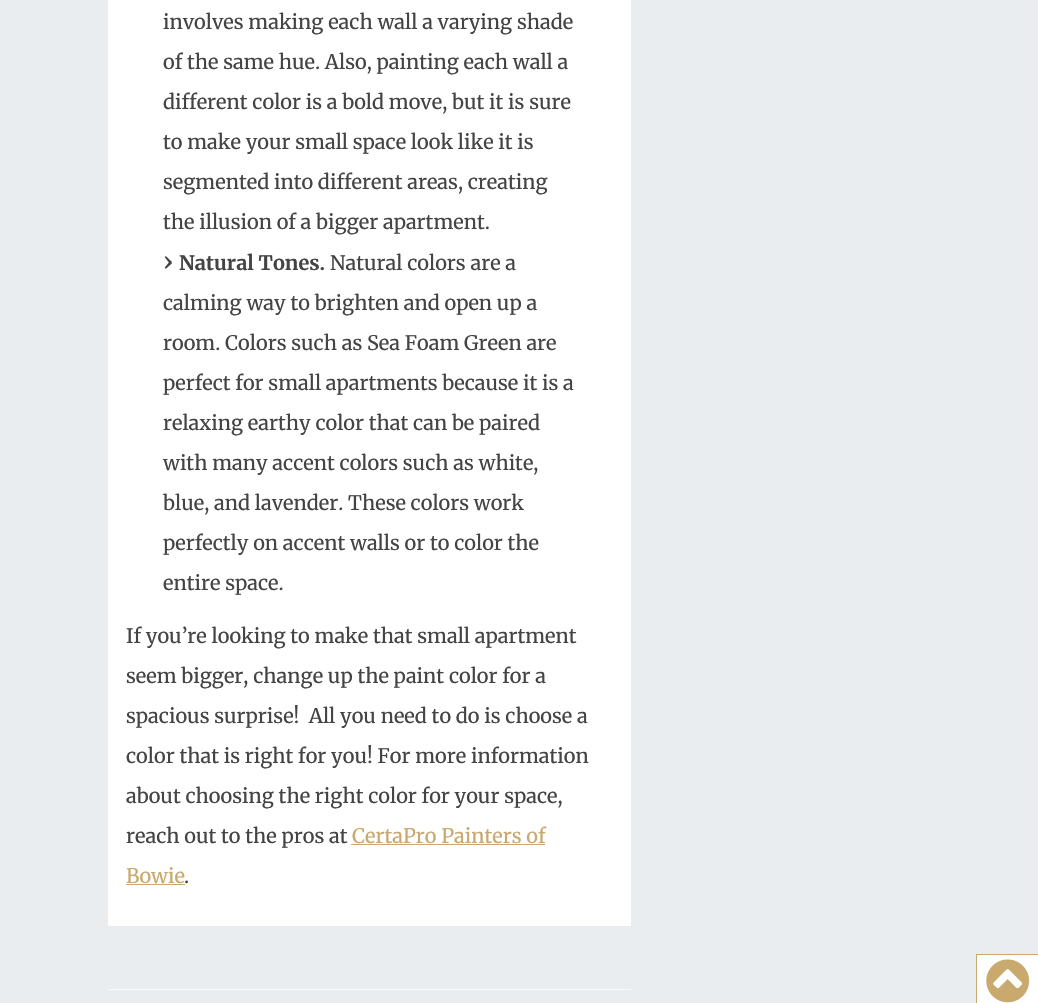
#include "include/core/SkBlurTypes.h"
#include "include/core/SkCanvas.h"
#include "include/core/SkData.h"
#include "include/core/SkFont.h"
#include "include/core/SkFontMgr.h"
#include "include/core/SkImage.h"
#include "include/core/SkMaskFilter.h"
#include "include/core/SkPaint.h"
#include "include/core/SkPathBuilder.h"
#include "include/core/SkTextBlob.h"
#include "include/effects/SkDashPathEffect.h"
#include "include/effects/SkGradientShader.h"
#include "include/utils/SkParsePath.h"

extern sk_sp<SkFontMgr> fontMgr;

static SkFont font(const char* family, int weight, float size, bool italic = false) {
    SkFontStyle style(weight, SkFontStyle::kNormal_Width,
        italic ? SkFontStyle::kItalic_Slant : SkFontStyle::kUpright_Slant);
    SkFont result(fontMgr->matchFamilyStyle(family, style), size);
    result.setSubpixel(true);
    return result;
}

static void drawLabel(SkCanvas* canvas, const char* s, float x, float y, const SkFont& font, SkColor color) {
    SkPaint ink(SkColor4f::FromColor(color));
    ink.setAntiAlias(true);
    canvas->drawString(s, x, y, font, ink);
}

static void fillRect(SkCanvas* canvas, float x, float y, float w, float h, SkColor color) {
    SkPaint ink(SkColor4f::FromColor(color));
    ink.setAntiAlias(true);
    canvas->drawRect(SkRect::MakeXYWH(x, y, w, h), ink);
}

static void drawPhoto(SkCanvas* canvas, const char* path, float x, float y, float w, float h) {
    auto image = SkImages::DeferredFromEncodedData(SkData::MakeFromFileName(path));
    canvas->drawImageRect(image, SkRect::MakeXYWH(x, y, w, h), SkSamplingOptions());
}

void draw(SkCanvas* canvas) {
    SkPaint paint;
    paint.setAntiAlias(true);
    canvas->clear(0xFFEAEDEF);
    fillRect(canvas, 108, 0, 523, 926, 0xFFFFFFFF);
    SkFont font1 = font("Merriweather", 400, 20);
    drawLabel(canvas, "involves making each wall a varying shade", 163, 29, font1, 0xFF444444);
    drawLabel(canvas, "of the same hue. Also, painting each wall a", 163, 69, font1, 0xFF444444);
    drawLabel(canvas, "different color is a bold move, but it is sure", 163, 109, font1, 0xFF444444);
    drawLabel(canvas, "to make your small space look like it is", 163, 149, font1, 0xFF444444);
    drawLabel(canvas, "segmented into different areas, creating", 163, 189, font1, 0xFF444444);
    drawLabel(canvas, "the illusion of a bigger apartment.", 163, 229, font1, 0xFF444444);
    SkFont font2 = font("Merriweather", 400, 25);
    drawLabel(canvas, "›", 163, 270, font2, 0xFF444444);
    SkFont font3 = font("Merriweather", 700, 20);
    drawLabel(canvas, "Natural Tones.", 179, 270, font3, 0xFF444444);
    drawLabel(canvas, "Natural colors are a", 330, 270, font1, 0xFF444444);
    drawLabel(canvas, "calming way to brighten and open up a", 163, 310, font1, 0xFF444444);
    drawLabel(canvas, "room. Colors such as Sea Foam Green are", 163, 350, font1, 0xFF444444);
    drawLabel(canvas, "perfect for small apartments because it is a", 163, 390, font1, 0xFF444444);
    drawLabel(canvas, "relaxing earthy color that can be paired", 163, 430, font1, 0xFF444444);
    drawLabel(canvas, "with many accent colors such as white,", 163, 470, font1, 0xFF444444);
    drawLabel(canvas, "blue, and lavender. These colors work", 163, 510, font1, 0xFF444444);
    drawLabel(canvas, "perfectly on accent walls or to color the", 163, 550, font1, 0xFF444444);
    drawLabel(canvas, "entire space.", 163, 590, font1, 0xFF444444);
    drawLabel(canvas, "If you’re looking to make that small apartment", 126, 643, font1, 0xFF444444);
    drawLabel(canvas, "seem bigger, change up the paint color for a", 126, 683, font1, 0xFF444444);
    drawLabel(canvas, "spacious surprise!  All you need to do is choose a", 126, 723, font1, 0xFF444444);
    drawLabel(canvas, "color that is right for you! For more information", 126, 763, font1, 0xFF444444);
    drawLabel(canvas, "about choosing the right color for your space,", 126, 803, font1, 0xFF444444);
    drawLabel(canvas, "reach out to the pros at", 126, 843, font1, 0xFF444444);
    drawLabel(canvas, "CertaPro Painters of", 352, 843, font1, 0xFFC9A96E);
    fillRect(canvas, 351, 844, 194, 1, 0xFFC9A96E);
    drawLabel(canvas, "Bowie", 126, 883, font1, 0xFFC9A96E);
    fillRect(canvas, 126, 884, 59, 1, 0xFFC9A96E);
    drawLabel(canvas, ".", 184, 883, font1, 0xFF444444);
    fillRect(canvas, 108, 989, 523, 1, 0xFFF8F9FA);
    paint.setColor(0xFFFFFFFF);
    canvas->drawRect(SkRect::MakeXYWH(976.5f, 954.5f, 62, 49), paint);
    paint.setStroke(true);
    paint.setStrokeWidth(1);
    paint.setColor(0xFFC9A96E);
    canvas->drawRect(SkRect::MakeXYWH(976.5f, 954.5f, 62, 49), paint);
    drawPhoto(canvas, "assets/img1.png", 986, 959, 44, 44);
}
